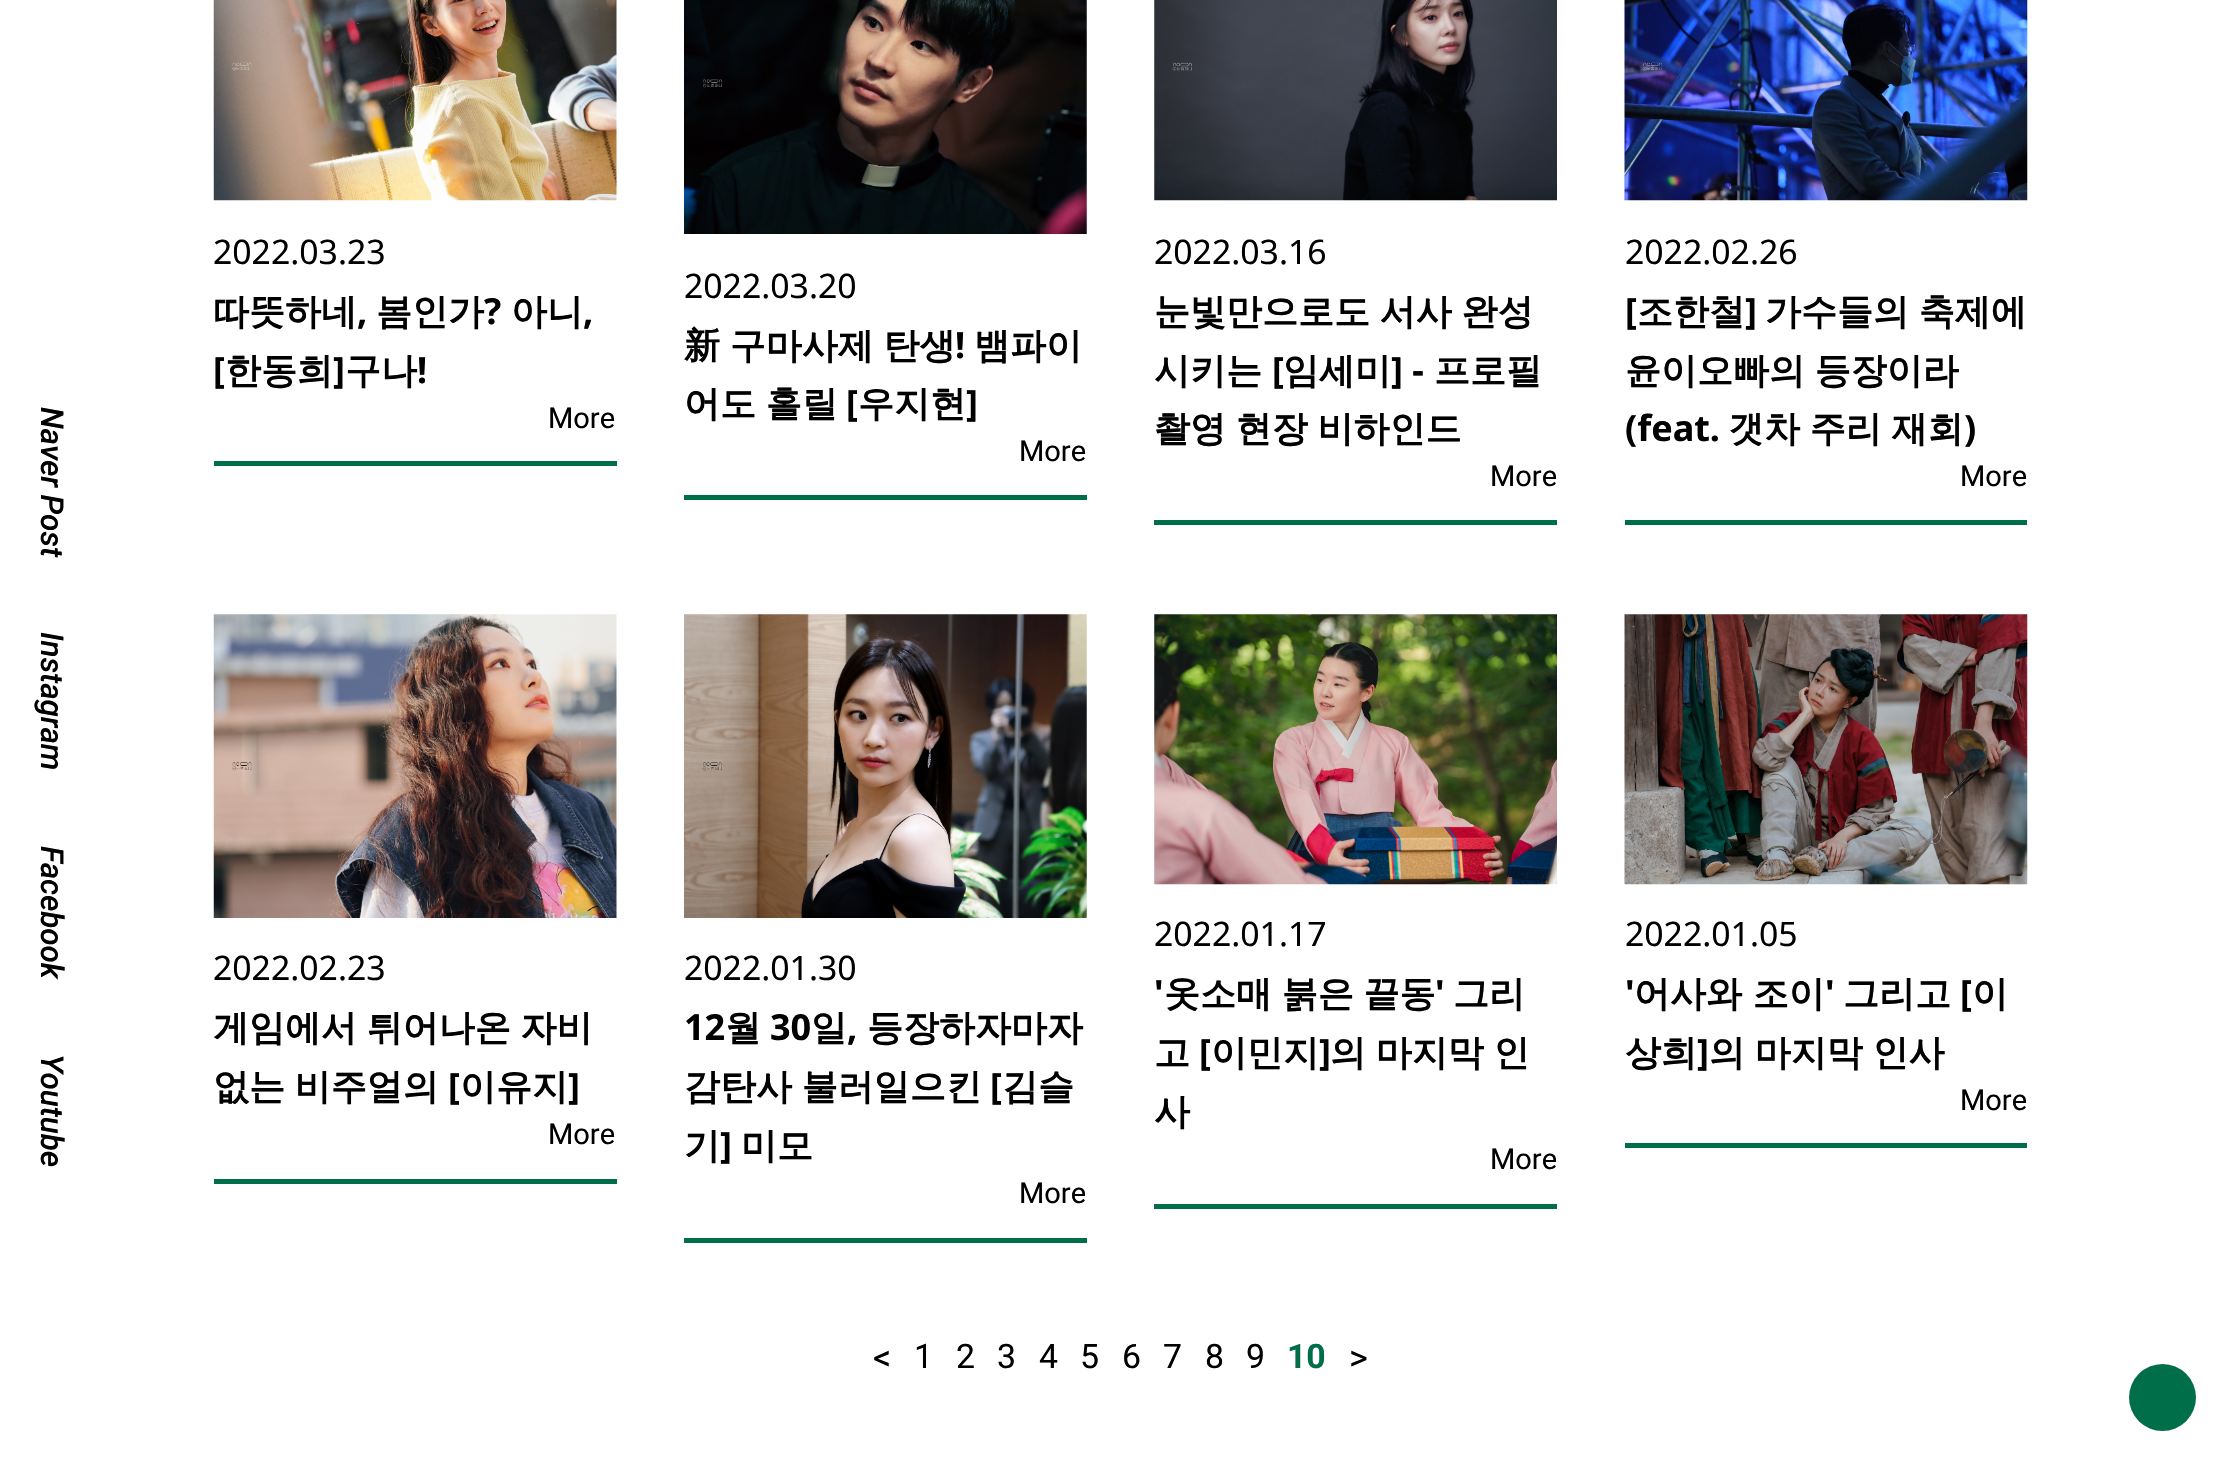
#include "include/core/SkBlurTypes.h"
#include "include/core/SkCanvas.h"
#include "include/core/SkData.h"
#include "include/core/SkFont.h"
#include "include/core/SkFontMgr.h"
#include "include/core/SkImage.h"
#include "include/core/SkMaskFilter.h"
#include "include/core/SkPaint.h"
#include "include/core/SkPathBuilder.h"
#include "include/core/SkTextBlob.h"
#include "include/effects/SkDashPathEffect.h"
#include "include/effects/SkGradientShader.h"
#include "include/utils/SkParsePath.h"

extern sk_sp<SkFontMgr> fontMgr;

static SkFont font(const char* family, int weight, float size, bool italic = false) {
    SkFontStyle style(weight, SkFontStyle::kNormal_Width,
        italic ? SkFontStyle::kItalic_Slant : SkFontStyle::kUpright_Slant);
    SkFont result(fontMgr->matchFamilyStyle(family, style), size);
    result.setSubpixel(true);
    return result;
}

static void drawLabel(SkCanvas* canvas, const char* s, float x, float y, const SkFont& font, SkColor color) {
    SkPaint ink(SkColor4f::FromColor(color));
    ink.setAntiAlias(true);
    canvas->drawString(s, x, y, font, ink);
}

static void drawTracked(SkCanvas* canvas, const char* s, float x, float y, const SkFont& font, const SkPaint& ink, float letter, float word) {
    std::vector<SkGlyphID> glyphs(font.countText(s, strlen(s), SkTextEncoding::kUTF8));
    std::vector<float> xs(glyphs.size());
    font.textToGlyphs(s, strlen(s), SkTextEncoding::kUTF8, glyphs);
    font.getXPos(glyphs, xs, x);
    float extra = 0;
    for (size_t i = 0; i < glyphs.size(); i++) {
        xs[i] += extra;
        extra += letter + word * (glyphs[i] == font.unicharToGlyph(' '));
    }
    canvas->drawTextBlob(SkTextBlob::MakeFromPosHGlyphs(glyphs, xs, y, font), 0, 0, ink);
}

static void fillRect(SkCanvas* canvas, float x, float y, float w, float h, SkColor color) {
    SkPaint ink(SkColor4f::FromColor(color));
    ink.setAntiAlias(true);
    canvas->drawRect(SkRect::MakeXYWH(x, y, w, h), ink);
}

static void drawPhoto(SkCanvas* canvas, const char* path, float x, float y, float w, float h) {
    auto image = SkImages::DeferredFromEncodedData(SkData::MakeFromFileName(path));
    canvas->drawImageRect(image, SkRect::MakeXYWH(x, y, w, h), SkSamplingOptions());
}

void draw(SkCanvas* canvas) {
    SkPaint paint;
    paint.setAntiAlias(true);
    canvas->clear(0xFFFFFFFF);
    SkFont font1 = font("Roboto", 500, 31.5f, true);
    paint.setColor(0xFF000000);
    canvas->save();
    canvas->rotate(90, 41, 407);
    drawTracked(canvas, "Naver Post", 41, 407, font1, paint, -0.1f, 0);
    canvas->restore();
    canvas->save();
    canvas->rotate(90, 41, 632);
    drawTracked(canvas, "Instagram", 41, 632, font1, paint, -0.1f, 0);
    canvas->restore();
    canvas->save();
    canvas->rotate(90, 41, 846);
    drawTracked(canvas, "Facebook", 41, 846, font1, paint, -0.1f, 0);
    canvas->restore();
    canvas->save();
    canvas->rotate(90, 41, 1054);
    drawTracked(canvas, "Youtube", 41, 1054, font1, paint, -0.1f, 0);
    canvas->restore();
    fillRect(canvas, 214, 461, 403, 5, 0xFF006F49);
    drawPhoto(canvas, "assets/img1.png", 213, 0, 404, 201);
    SkFont font2 = font("Noto Sans", 400, 33.75f);
    drawLabel(canvas, "2022.03.23", 213, 264, font2, 0xFF000000);
    SkFont font3 = font("WenQuanYi Zen Hei", 700, 36);
    drawLabel(canvas, "따뜻하네", 213, 324, font3, 0xFF000000);
    SkFont font4 = font("Noto Sans", 700, 36);
    drawLabel(canvas, ",", 357, 324, font4, 0xFF000000);
    drawLabel(canvas, "봄인가", 376, 324, font3, 0xFF000000);
    drawLabel(canvas, "?", 484, 324, font4, 0xFF000000);
    drawLabel(canvas, "아니", 511, 324, font3, 0xFF000000);
    drawLabel(canvas, ",", 583, 324, font4, 0xFF000000);
    drawLabel(canvas, "[", 213, 383, font4, 0xFF000000);
    drawLabel(canvas, "한동희", 225, 383, font3, 0xFF000000);
    drawLabel(canvas, "]", 333, 383, font4, 0xFF000000);
    drawLabel(canvas, "구나", 345, 383, font3, 0xFF000000);
    drawLabel(canvas, "!", 417, 383, font4, 0xFF000000);
    SkFont font5 = font("Roboto", 400, 29);
    drawLabel(canvas, "More", 548, 428, font5, 0xFF000000);
    fillRect(canvas, 684, 495, 403, 5, 0xFF006F49);
    drawPhoto(canvas, "assets/img2.png", 684, 0, 403, 234);
    drawLabel(canvas, "2022.03.20", 684, 298, font2, 0xFF000000);
    drawTracked(canvas, "新 구마사제 탄생", 684, 358, font3, paint, 0, -1);
    drawLabel(canvas, "!", 955, 358, font4, 0xFF000000);
    drawLabel(canvas, "뱀파이", 974, 358, font3, 0xFF000000);
    drawTracked(canvas, "어도 홀릴", 684, 416, font3, paint, 0, -1);
    drawLabel(canvas, "[", 846, 416, font4, 0xFF000000);
    drawLabel(canvas, "우지현", 858, 416, font3, 0xFF000000);
    drawLabel(canvas, "]", 966, 416, font4, 0xFF000000);
    drawLabel(canvas, "More", 1019, 461, font5, 0xFF000000);
    fillRect(canvas, 1154, 520, 403, 5, 0xFF006F49);
    drawPhoto(canvas, "assets/img3.png", 1154, 0, 403, 201);
    drawLabel(canvas, "2022.03.16", 1154, 264, font2, 0xFF000000);
    drawTracked(canvas, "눈빛만으로도 서사 완성", 1154, 324, font3, paint, 0, -1);
    drawLabel(canvas, "시키는", 1154, 383, font3, 0xFF000000);
    drawLabel(canvas, "[", 1272, 383, font4, 0xFF000000);
    drawLabel(canvas, "임세미", 1283, 383, font3, 0xFF000000);
    drawLabel(canvas, "] -", 1391, 383, font4, 0xFF000000);
    drawLabel(canvas, "프로필", 1434, 383, font3, 0xFF000000);
    drawTracked(canvas, "촬영 현장 비하인드", 1154, 441, font3, paint, 0, -1);
    drawLabel(canvas, "More", 1490, 486, font5, 0xFF000000);
    fillRect(canvas, 1625, 520, 402, 5, 0xFF006F49);
    drawPhoto(canvas, "assets/img4.png", 1624, 0, 404, 201);
    drawLabel(canvas, "2022.02.26", 1625, 264, font2, 0xFF000000);
    drawLabel(canvas, "[", 1625, 324, font4, 0xFF000000);
    drawLabel(canvas, "조한철", 1637, 324, font3, 0xFF000000);
    drawLabel(canvas, "]", 1745, 324, font4, 0xFF000000);
    drawTracked(canvas, "가수들의 축제에", 1765, 324, font3, paint, 0, -1);
    drawTracked(canvas, "윤이오빠의 등장이라", 1625, 383, font3, paint, 0, -1);
    drawLabel(canvas, "(feat.", 1625, 441, font4, 0xFF000000);
    drawTracked(canvas, "갯차 주리 재회", 1728, 441, font3, paint, 0, -1);
    drawLabel(canvas, ")", 1964, 441, font4, 0xFF000000);
    drawLabel(canvas, "More", 1960, 486, font5, 0xFF000000);
    fillRect(canvas, 214, 1179, 403, 5, 0xFF006F49);
    drawPhoto(canvas, "assets/img5.png", 213, 614, 404, 304);
    drawLabel(canvas, "2022.02.23", 213, 980, font2, 0xFF000000);
    drawTracked(canvas, "게임에서 튀어나온 자비", 213, 1040, font3, paint, 0, -1);
    drawTracked(canvas, "없는 비주얼의", 213, 1099, font3, paint, 0, -1);
    drawLabel(canvas, "[", 448, 1099, font4, 0xFF000000);
    drawLabel(canvas, "이유지", 460, 1099, font3, 0xFF000000);
    drawLabel(canvas, "]", 568, 1099, font4, 0xFF000000);
    drawLabel(canvas, "More", 548, 1144, font5, 0xFF000000);
    fillRect(canvas, 684, 1238, 403, 5, 0xFF006F49);
    drawPhoto(canvas, "assets/img6.png", 684, 614, 403, 304);
    drawLabel(canvas, "2022.01.30", 684, 980, font2, 0xFF000000);
    drawLabel(canvas, "12", 684, 1040, font4, 0xFF000000);
    drawLabel(canvas, "월", 725, 1040, font3, 0xFF000000);
    drawLabel(canvas, "30", 770, 1040, font4, 0xFF000000);
    drawLabel(canvas, "일", 811, 1040, font3, 0xFF000000);
    drawLabel(canvas, ",", 847, 1040, font4, 0xFF000000);
    drawLabel(canvas, "등장하자마자", 867, 1040, font3, 0xFF000000);
    drawTracked(canvas, "감탄사 불러일으킨", 684, 1099, font3, paint, 0, -1);
    drawLabel(canvas, "[", 990, 1099, font4, 0xFF000000);
    drawLabel(canvas, "김슬", 1002, 1099, font3, 0xFF000000);
    drawLabel(canvas, "기", 684, 1158, font3, 0xFF000000);
    drawLabel(canvas, "]", 720, 1158, font4, 0xFF000000);
    drawLabel(canvas, "미모", 741, 1158, font3, 0xFF000000);
    drawLabel(canvas, "More", 1019, 1203, font5, 0xFF000000);
    fillRect(canvas, 1154, 1204, 403, 5, 0xFF006F49);
    drawPhoto(canvas, "assets/img7.png", 1154, 614, 403, 271);
    drawLabel(canvas, "2022.01.17", 1154, 946, font2, 0xFF000000);
    drawLabel(canvas, "'", 1154, 1006, font4, 0xFF000000);
    drawTracked(canvas, "옷소매 붉은 끝동", 1164, 1006, font3, paint, 0, -1);
    drawLabel(canvas, "'", 1435, 1006, font4, 0xFF000000);
    drawLabel(canvas, "그리", 1453, 1006, font3, 0xFF000000);
    drawLabel(canvas, "고", 1154, 1065, font3, 0xFF000000);
    drawLabel(canvas, "[", 1199, 1065, font4, 0xFF000000);
    drawLabel(canvas, "이민지", 1211, 1065, font3, 0xFF000000);
    drawLabel(canvas, "]", 1319, 1065, font4, 0xFF000000);
    drawTracked(canvas, "의 마지막 인", 1330, 1065, font3, paint, 0, -1);
    drawLabel(canvas, "사", 1154, 1124, font3, 0xFF000000);
    drawLabel(canvas, "More", 1490, 1169, font5, 0xFF000000);
    fillRect(canvas, 1625, 1143, 402, 5, 0xFF006F49);
    drawPhoto(canvas, "assets/img8.png", 1624, 614, 404, 271);
    drawLabel(canvas, "2022.01.05", 1625, 946, font2, 0xFF000000);
    drawLabel(canvas, "'", 1625, 1006, font4, 0xFF000000);
    drawLabel(canvas, "어사와 조이", 1634, 1006, font3, 0xFF000000);
    drawLabel(canvas, "'", 1825, 1006, font4, 0xFF000000);
    drawLabel(canvas, "그리고", 1843, 1006, font3, 0xFF000000);
    drawLabel(canvas, "[", 1960, 1006, font4, 0xFF000000);
    drawLabel(canvas, "이", 1972, 1006, font3, 0xFF000000);
    drawLabel(canvas, "상희", 1625, 1065, font3, 0xFF000000);
    drawLabel(canvas, "]", 1697, 1065, font4, 0xFF000000);
    drawTracked(canvas, "의 마지막 인사", 1709, 1065, font3, paint, 0, -1);
    drawLabel(canvas, "More", 1960, 1110, font5, 0xFF000000);
    SkFont font6 = font("Roboto", 400, 36);
    drawLabel(canvas, "<", 873, 1370, font6, 0xFF000000);
    SkFont font7 = font("Roboto", 400, 33.75f);
    drawLabel(canvas, "1", 914, 1368, font7, 0xFF000000);
    drawLabel(canvas, "2", 956, 1368, font7, 0xFF000000);
    drawLabel(canvas, "3", 997, 1368, font7, 0xFF000000);
    drawLabel(canvas, "4", 1039, 1368, font7, 0xFF000000);
    drawLabel(canvas, "5", 1080, 1368, font7, 0xFF000000);
    drawLabel(canvas, "6", 1122, 1368, font7, 0xFF000000);
    drawLabel(canvas, "7", 1163, 1368, font7, 0xFF000000);
    drawLabel(canvas, "8", 1205, 1368, font7, 0xFF000000);
    drawLabel(canvas, "9", 1246, 1368, font7, 0xFF000000);
    SkFont font8 = font("Roboto", 700, 33.75f);
    drawLabel(canvas, "10", 1287, 1368, font8, 0xFF006F49);
    drawLabel(canvas, ">", 1349, 1370, font6, 0xFF000000);
    paint.setColor(0xFF006F49);
    canvas->drawCircle(2162.5f, 1397.5f, 33.5f, paint);
}
